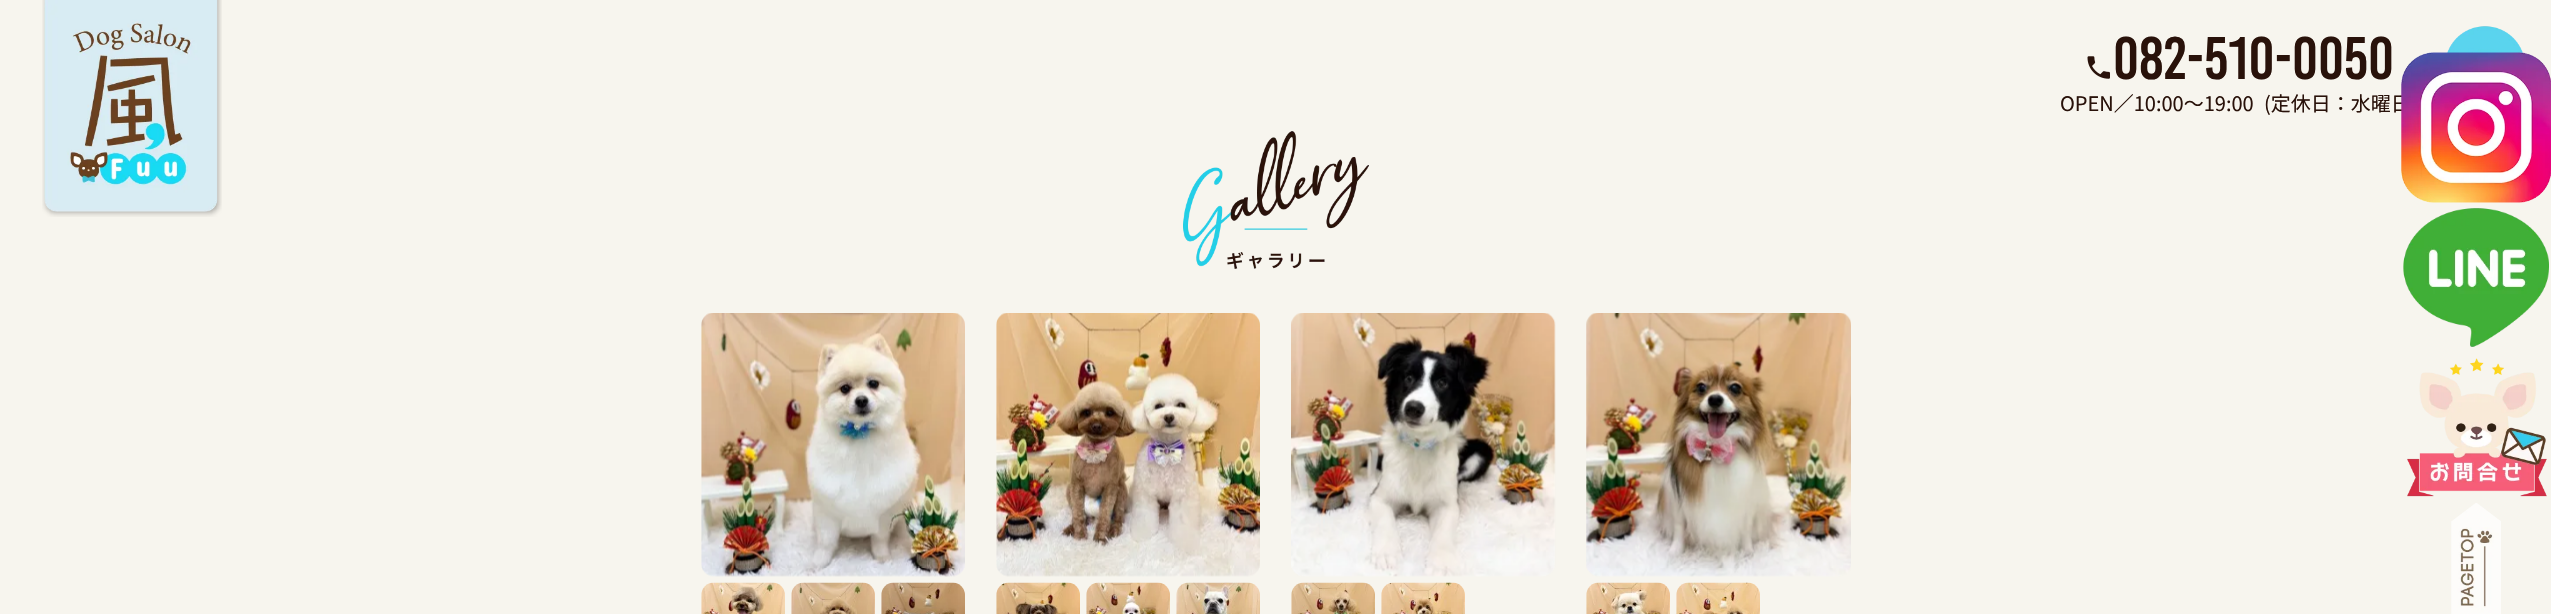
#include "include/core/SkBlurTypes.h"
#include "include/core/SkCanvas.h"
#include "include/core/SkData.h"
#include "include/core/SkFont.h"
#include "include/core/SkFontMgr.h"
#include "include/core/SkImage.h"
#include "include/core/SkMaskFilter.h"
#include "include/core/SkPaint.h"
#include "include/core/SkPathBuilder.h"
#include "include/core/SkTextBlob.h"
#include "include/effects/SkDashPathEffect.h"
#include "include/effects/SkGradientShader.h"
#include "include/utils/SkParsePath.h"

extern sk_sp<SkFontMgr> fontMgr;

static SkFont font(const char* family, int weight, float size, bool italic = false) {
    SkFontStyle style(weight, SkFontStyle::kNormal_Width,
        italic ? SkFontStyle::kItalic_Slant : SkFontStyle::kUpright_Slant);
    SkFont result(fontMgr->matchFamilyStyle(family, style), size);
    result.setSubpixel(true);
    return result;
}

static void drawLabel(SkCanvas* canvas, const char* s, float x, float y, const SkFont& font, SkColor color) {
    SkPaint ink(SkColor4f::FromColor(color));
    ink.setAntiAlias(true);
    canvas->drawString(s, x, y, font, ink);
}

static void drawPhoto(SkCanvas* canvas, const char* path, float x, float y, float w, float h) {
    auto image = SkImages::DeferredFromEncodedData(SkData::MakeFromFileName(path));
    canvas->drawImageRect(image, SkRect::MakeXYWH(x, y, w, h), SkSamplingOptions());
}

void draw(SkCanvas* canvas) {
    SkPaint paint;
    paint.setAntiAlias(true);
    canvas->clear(0xFFF7F5EE);
    drawPhoto(canvas, "assets/img1.png", 42, 0, 180, 217);
    drawPhoto(canvas, "assets/img2.png", 2087, 56, 23, 23);
    SkFont font1 = font("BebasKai", 400, 60);
    drawLabel(canvas, "082-510-0050", 2113, 79, font1, 0xFF29120A);
    drawPhoto(canvas, "assets/img3.png", 2447, 26, 76, 27);
    SkFont font2 = font("Noto Sans JP", 100, 20);
    drawLabel(canvas, "OPEN／10:00～19:00", 2060, 111, font2, 0xFF29120A);
    drawLabel(canvas, "(定休日：水曜日", 2264, 111, font2, 0xFF29120A);
    drawPhoto(canvas, "assets/img4.png", 2401, 52, 150, 151);
    drawPhoto(canvas, "assets/img5.png", 2403, 208, 146, 139);
    drawPhoto(canvas, "assets/img6.png", 2407, 358, 140, 139);
    drawPhoto(canvas, "assets/img7.png", 2451, 503, 50, 111);
    drawPhoto(canvas, "assets/img8.png", 1183, 131, 186, 138);
    drawPhoto(canvas, "assets/img9.png", 701, 313, 264, 264);
    drawPhoto(canvas, "assets/img10.png", 701, 582, 84, 32);
    drawPhoto(canvas, "assets/img11.png", 791, 582, 84, 32);
    drawPhoto(canvas, "assets/img12.png", 881, 582, 84, 32);
    drawPhoto(canvas, "assets/img13.png", 996, 313, 264, 264);
    drawPhoto(canvas, "assets/img14.png", 996, 582, 84, 32);
    drawPhoto(canvas, "assets/img15.png", 1086, 582, 84, 32);
    drawPhoto(canvas, "assets/img16.png", 1176, 582, 84, 32);
    drawPhoto(canvas, "assets/img17.png", 1291, 313, 265, 264);
    drawPhoto(canvas, "assets/img18.png", 1291, 582, 84, 32);
    drawPhoto(canvas, "assets/img19.png", 1381, 582, 84, 32);
    drawPhoto(canvas, "assets/img20.png", 1586, 313, 265, 264);
    drawPhoto(canvas, "assets/img21.png", 1586, 582, 84, 32);
    drawPhoto(canvas, "assets/img22.png", 1676, 582, 84, 32);
}
